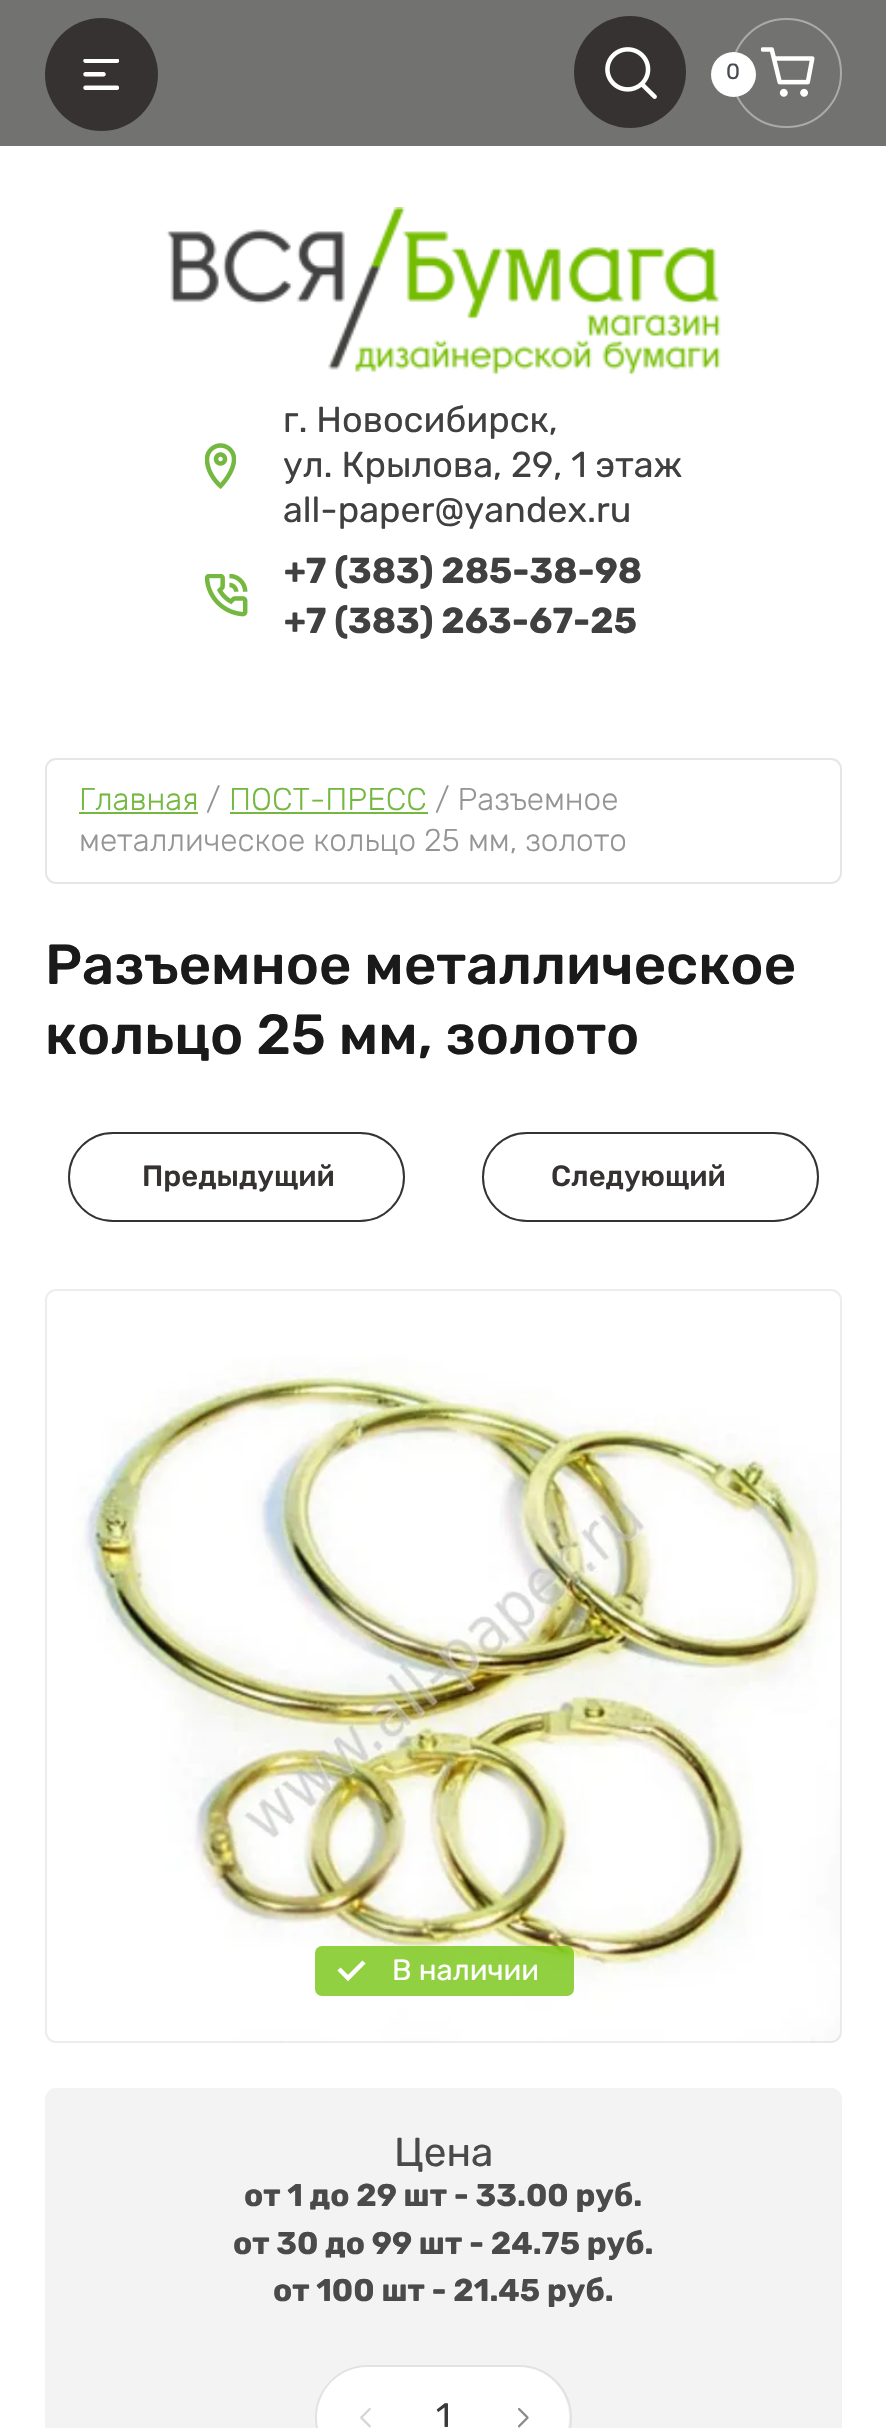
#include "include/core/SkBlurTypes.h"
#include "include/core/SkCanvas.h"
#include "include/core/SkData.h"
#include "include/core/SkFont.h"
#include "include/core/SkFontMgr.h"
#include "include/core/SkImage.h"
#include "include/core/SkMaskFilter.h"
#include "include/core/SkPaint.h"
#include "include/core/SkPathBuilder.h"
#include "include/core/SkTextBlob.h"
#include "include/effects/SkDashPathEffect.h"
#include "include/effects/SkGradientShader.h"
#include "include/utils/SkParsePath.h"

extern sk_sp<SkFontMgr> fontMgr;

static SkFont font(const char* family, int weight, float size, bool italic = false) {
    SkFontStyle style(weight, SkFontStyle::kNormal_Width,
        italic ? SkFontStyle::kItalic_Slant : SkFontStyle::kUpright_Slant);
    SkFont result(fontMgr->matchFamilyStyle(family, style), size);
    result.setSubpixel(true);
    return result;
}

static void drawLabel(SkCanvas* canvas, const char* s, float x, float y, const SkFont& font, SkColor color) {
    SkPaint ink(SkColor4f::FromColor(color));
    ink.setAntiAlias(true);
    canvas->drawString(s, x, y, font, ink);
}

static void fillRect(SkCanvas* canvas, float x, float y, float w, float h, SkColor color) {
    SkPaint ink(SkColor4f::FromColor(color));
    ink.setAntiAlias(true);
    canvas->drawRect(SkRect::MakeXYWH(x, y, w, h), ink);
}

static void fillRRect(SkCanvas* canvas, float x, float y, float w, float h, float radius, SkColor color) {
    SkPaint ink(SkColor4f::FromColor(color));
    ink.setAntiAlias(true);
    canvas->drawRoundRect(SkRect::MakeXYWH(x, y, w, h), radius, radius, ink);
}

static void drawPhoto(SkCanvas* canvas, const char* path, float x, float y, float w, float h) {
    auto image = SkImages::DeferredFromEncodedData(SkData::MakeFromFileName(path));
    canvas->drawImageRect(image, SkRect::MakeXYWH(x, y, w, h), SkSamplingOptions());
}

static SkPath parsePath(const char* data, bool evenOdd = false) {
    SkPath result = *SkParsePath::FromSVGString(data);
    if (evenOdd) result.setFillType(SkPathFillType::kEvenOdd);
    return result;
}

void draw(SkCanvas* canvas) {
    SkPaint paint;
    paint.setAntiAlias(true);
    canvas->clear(0xFFFFFFFF);
    fillRect(canvas, 0, 0, 886, 146, 0xFF727271);
    paint.setColor(0xFF363232);
    canvas->drawCircle(101.5f, 74.5f, 56.5f, paint);
    drawPhoto(canvas, "assets/img1.png", 83, 59, 36, 31);
    canvas->drawCircle(630, 72, 56, paint);
    drawPhoto(canvas, "assets/img2.png", 605, 47, 52, 52);
    paint.setStroke(true);
    paint.setStrokeWidth(2);
    paint.setColor(0xFFAAAAAA);
    canvas->drawRoundRect(SkRect::MakeXYWH(732, 19, 109, 108), 54, 54, paint);
    paint.setStroke(false);
    paint.setColor(0xFFFFFFFF);
    canvas->drawCircle(733.5f, 74.5f, 22.5f, paint);
    SkFont font1 = font("Rubik", 400, 22);
    drawLabel(canvas, "0", 726, 79, font1, 0xFF484C50);
    drawPhoto(canvas, "assets/img3.png", 761, 47, 54, 50);
    drawPhoto(canvas, "assets/img4.png", 166, 207, 555, 168);
    drawPhoto(canvas, "assets/img5.png", 205, 443, 31, 46);
    SkFont font2 = font("Rubik", 400, 36);
    drawLabel(canvas, "г. Новосибирск,", 283, 432, font2, 0xFF404040);
    drawLabel(canvas, "ул. Крылова, 29, 1 этаж", 283, 477, font2, 0xFF404040);
    drawLabel(canvas, "all-paper@yandex.ru", 283, 522, font2, 0xFF404040);
    drawPhoto(canvas, "assets/img6.png", 205, 574, 43, 43);
    SkFont font3 = font("Rubik", 700, 36);
    drawLabel(canvas, "+7 (383) 285-38-98", 284, 583, font3, 0xFF404040);
    drawLabel(canvas, "+7 (383) 263-67-25", 284, 633, font3, 0xFF404040);
    paint.setStroke(true);
    paint.setColor(0xFFE6E6E6);
    canvas->drawRoundRect(SkRect::MakeXYWH(46, 759, 795, 124), 10, 10, paint);
    SkFont font4 = font("Rubik", 300, 31.5f);
    drawLabel(canvas, "Главная", 79, 810, font4, 0xFF75B841);
    fillRect(canvas, 79, 812, 119, 2, 0xFF75B841);
    drawLabel(canvas, "/", 206, 810, font4, 0xFF959595);
    drawLabel(canvas, "ПОСТ-ПРЕСС", 229, 810, font4, 0xFF75B841);
    fillRect(canvas, 230, 812, 198, 2, 0xFF75B841);
    drawLabel(canvas, "/ Разъемное", 435, 810, font4, 0xFF959595);
    drawLabel(canvas, "металлическое кольцо 25 мм, золото", 79, 851, font4, 0xFF959595);
    SkFont font5 = font("Rubik", 500, 56.25f);
    drawLabel(canvas, "Разъемное металлическое", 45, 984, font5, 0xFF1A1A1A);
    drawLabel(canvas, "кольцо 25 мм, золото", 45, 1054, font5, 0xFF1A1A1A);
    paint.setColor(0xFF363232);
    canvas->drawRoundRect(SkRect::MakeXYWH(69, 1133, 335, 88), 44, 44, paint);
    SkFont font6 = font("Rubik", 500, 29.25f);
    drawLabel(canvas, "Предыдущий", 142, 1186, font6, 0xFF363232);
    canvas->drawRoundRect(SkRect::MakeXYWH(483, 1133, 335, 88), 44, 44, paint);
    drawLabel(canvas, "Следующий", 551, 1186, font6, 0xFF363232);
    drawPhoto(canvas, "assets/img7.png", 72, 1355, 769, 688);
    paint.setColor(0x12000000);
    canvas->drawRoundRect(SkRect::MakeXYWH(46, 1290, 795, 752), 10, 10, paint);
    fillRRect(canvas, 315, 1946, 259, 50, 7, 0xCC76C611);
    paint.setStrokeWidth(4.5f);
    paint.setColor(0xFFFFFFFF);
    canvas->drawPath(parsePath("M339 1969L348 1978L364 1962"), paint);
    SkFont font7 = font("Rubik", 400, 29.25f);
    drawLabel(canvas, "В наличии", 392, 1980, font7, 0xFFFFFFFF);
    fillRRect(canvas, 45, 2088, 797, 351, 11, 0xFFF3F3F3);
    SkFont font8 = font("Rubik", 400, 40.5f);
    drawLabel(canvas, "Цена", 394, 2166, font8, 0xFF4A4A4A);
    SkFont font9 = font("Rubik", 700, 31.5f);
    drawLabel(canvas, "от 1 до 29 шт - 33.00 руб.", 244, 2206, font9, 0xFF4A4A4A);
    drawLabel(canvas, "от 30 до 99 шт - 24.75 руб.", 233, 2254, font9, 0xFF4A4A4A);
    drawLabel(canvas, "от 100 шт - 21.45 руб.", 273, 2301, font9, 0xFF4A4A4A);
    paint.setStrokeWidth(2);
    paint.setColor(0xFFE2E2E2);
    canvas->drawRoundRect(SkRect::MakeXYWH(316, 2366, 255, 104), 52, 52, paint);
    fillRRect(canvas, 317, 2367, 252, 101, 50.5f, 0xFFFFFFFF);
    drawPhoto(canvas, "assets/img8.png", 360, 2408, 11, 20);
    SkFont font10 = font("Rubik", 400, 34);
    drawLabel(canvas, "1", 436, 2427, font10, 0xFF393939);
    drawPhoto(canvas, "assets/img9.png", 518, 2408, 11, 20);
}
